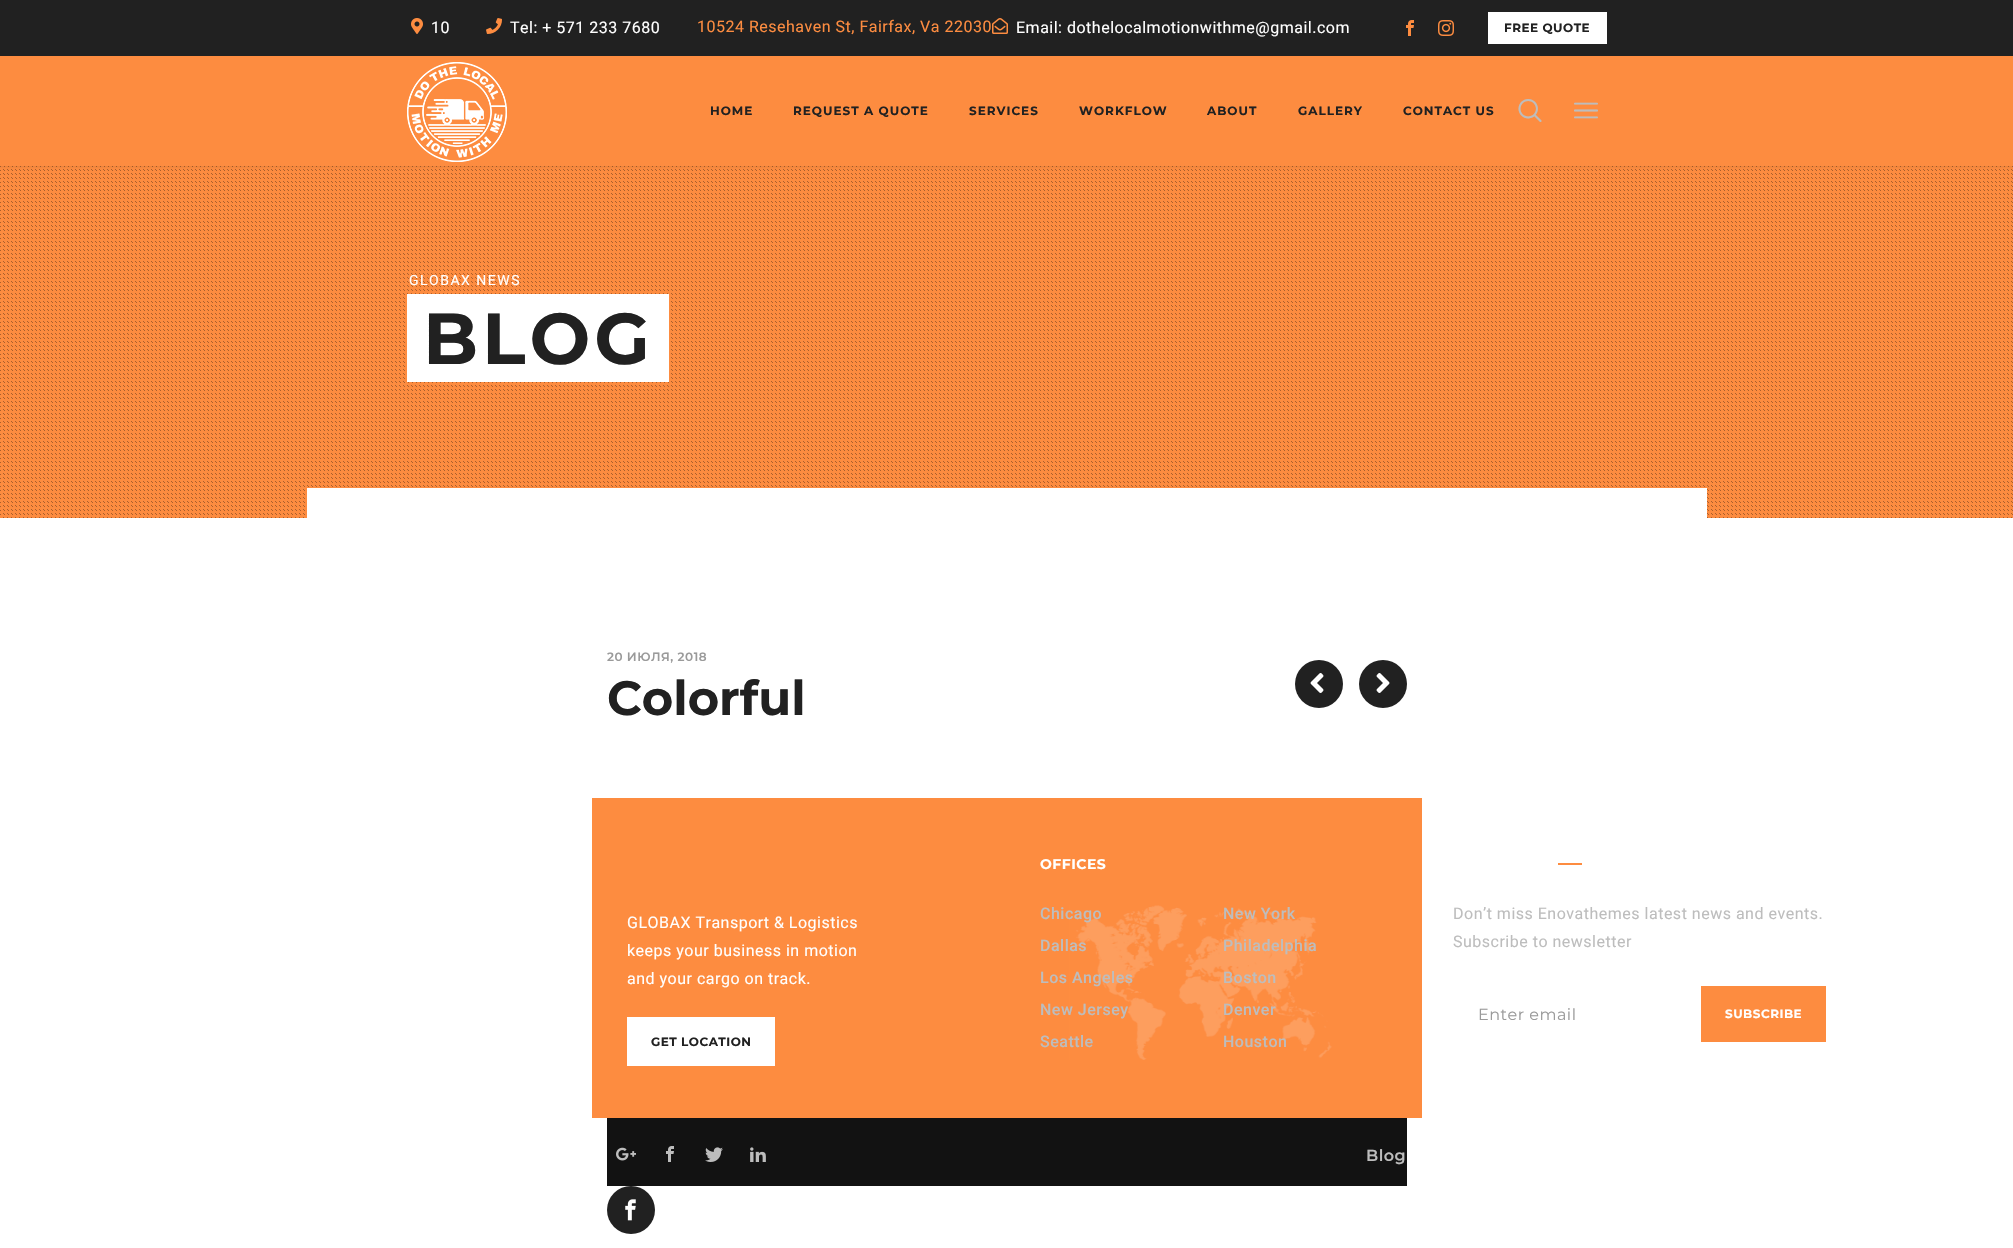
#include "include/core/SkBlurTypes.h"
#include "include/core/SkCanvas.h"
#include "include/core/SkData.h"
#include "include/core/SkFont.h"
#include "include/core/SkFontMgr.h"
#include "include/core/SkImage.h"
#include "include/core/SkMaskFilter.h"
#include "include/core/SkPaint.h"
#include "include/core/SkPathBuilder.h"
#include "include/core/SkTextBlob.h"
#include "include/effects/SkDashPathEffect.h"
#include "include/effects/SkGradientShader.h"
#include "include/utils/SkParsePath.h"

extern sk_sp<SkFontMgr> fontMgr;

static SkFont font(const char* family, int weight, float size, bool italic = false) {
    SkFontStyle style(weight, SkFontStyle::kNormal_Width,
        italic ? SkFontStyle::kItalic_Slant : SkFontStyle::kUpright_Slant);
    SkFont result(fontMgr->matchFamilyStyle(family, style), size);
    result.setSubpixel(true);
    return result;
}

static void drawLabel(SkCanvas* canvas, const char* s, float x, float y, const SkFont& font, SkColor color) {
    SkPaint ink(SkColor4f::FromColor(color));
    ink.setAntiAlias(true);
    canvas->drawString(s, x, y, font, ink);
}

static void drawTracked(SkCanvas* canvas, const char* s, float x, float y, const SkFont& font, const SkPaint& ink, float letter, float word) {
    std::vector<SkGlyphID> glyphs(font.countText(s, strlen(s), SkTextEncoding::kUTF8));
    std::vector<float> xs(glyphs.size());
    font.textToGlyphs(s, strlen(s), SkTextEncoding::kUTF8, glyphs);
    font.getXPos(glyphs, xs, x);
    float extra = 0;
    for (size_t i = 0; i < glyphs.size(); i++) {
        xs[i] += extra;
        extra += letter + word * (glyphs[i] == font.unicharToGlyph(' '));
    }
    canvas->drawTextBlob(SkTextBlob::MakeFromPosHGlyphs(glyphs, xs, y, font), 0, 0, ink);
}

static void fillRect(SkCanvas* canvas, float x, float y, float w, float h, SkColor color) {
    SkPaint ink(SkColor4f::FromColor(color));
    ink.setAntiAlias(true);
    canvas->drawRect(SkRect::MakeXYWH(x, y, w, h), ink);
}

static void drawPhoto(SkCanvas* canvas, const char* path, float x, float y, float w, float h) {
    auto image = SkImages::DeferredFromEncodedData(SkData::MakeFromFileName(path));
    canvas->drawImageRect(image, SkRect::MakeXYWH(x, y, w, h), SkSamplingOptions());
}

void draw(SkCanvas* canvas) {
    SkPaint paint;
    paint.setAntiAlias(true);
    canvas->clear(0xFFFFFFFF);
    fillRect(canvas, 0, 166, 2013, 352, 0xFFFD8C40);
    drawPhoto(canvas, "assets/img7.png", 0, 166, 2013, 352);
    paint.setColor(0x1A000000);
    paint.setMaskFilter(SkMaskFilter::MakeBlur(kNormal_SkBlurStyle, 1.5f));
    canvas->drawRect(SkRect::MakeXYWH(0, 1, 2013, 166), paint);
    paint.setMaskFilter(nullptr);
    fillRect(canvas, 0, 0, 2013, 56, 0xFF212121);
    drawPhoto(canvas, "assets/img1.png", 411, 18, 12, 16);
    SkFont font1 = font("Roboto", 400, 16);
    paint.setColor(0xFFFFFFFF);
    drawTracked(canvas, "10", 431, 33, font1, paint, 0.5f, 0);
    drawPhoto(canvas, "assets/img2.png", 486, 18, 16, 16);
    drawTracked(canvas, "Tel: + 571 233 7680", 510, 33, font1, paint, 0.5f, 0);
    paint.setColor(0xFFFD8C40);
    drawTracked(canvas, "10524 Resehaven St, Fairfax, Va 22030", 697, 32, font1, paint, 0.5f, 0);
    drawPhoto(canvas, "assets/img3.png", 992, 18, 16, 16);
    paint.setColor(0xFFFFFFFF);
    drawTracked(canvas, "Email: dothelocalmotionwithme@gmail.com", 1016, 33, font1, paint, 0.5f, 0);
    drawPhoto(canvas, "assets/img4.png", 1406, 20, 8, 16);
    drawPhoto(canvas, "assets/img5.png", 1438, 20, 16, 16);
    fillRect(canvas, 1488, 12, 119, 32, 0xFFFFFFFF);
    SkFont font2 = font("Montserrat", 700, 12);
    paint.setColor(0xFF212121);
    drawTracked(canvas, "FREE QUOTE", 1504, 32, font2, paint, 0.5f, 0);
    fillRect(canvas, 0, 56, 2013, 110, 0xFFFD8C40);
    drawPhoto(canvas, "assets/img6.png", 407, 62, 100, 100);
    drawTracked(canvas, "HOME", 710, 115, font2, paint, 1, 0);
    drawTracked(canvas, "REQUEST A QUOTE", 793, 115, font2, paint, 1, 0);
    drawTracked(canvas, "SERVICES", 969, 115, font2, paint, 1, 0);
    drawTracked(canvas, "WORKFLOW", 1079, 115, font2, paint, 1, 0);
    drawTracked(canvas, "ABOUT", 1207, 115, font2, paint, 1, 0);
    drawTracked(canvas, "GALLERY", 1298, 115, font2, paint, 1, 0);
    drawTracked(canvas, "CONTACT US", 1403, 115, font2, paint, 1, 0);
    SkFont font3 = font("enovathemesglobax", 400, 24);
    paint.setColor(0xFFBDBDBD);
    drawTracked(canvas, "꤁", 1518, 121, font3, paint, 0.5f, 0);
    drawTracked(canvas, "꤀", 1574, 121, font3, paint, 0.5f, 0);
    SkFont font4 = font("Roboto", 400, 14);
    paint.setColor(0xFFFFFFFF);
    drawTracked(canvas, "GLOBAX NEWS", 409, 285, font4, paint, 1.5f, 0);
    fillRect(canvas, 407, 294, 262, 88, 0xFFFFFFFF);
    SkFont font5 = font("Montserrat", 700, 72);
    paint.setColor(0xFF212121);
    drawTracked(canvas, "BLOG", 423, 364, font5, paint, 4, 0);
    fillRect(canvas, 307, 488, 1400, 30, 0xFFFFFFFF);
    SkFont font6 = font("Montserrat", 600, 12);
    paint.setColor(0xFF9A9A9A);
    drawTracked(canvas, "20 ИЮЛЯ, 2018", 607, 661, font6, paint, 0.5f, 0);
    SkFont font7 = font("Montserrat", 700, 48);
    drawLabel(canvas, "Colorful", 607, 715, font7, 0xFF212121);
    paint.setColor(0xFF212121);
    canvas->drawCircle(1319, 684, 24, paint);
    drawPhoto(canvas, "assets/img8.png", 1310, 673, 14, 20);
    canvas->drawCircle(1383, 684, 24, paint);
    drawPhoto(canvas, "assets/img9.png", 1376, 673, 14, 20);
    fillRect(canvas, 592, 798, 830, 320, 0xFFFD8C40);
    paint.setColor(0xFFFFFFFF);
    drawTracked(canvas, "GLOBAX Transport & Logistics", 627, 928, font1, paint, 0.5f, 0);
    drawTracked(canvas, "keeps your business in motion", 627, 956, font1, paint, 0.5f, 0);
    drawTracked(canvas, "and your cargo on track.", 627, 984, font1, paint, 0.5f, 0);
    fillRect(canvas, 627, 1017, 148, 49, 0xFFFFFFFF);
    paint.setColor(0xFF212121);
    drawTracked(canvas, "GET LOCATION", 651, 1046, font2, paint, 0.5f, 0);
    drawPhoto(canvas, "assets/img10.png", 1069, 905, 263, 155);
    SkFont font8 = font("Montserrat", 700, 14);
    paint.setColor(0xFFFFFFFF);
    drawTracked(canvas, "OFFICES", 1040, 869, font8, paint, 0.5f, 0);
    SkFont font9 = font("Roboto", 500, 16);
    paint.setColor(0xFFBDBDBD);
    drawTracked(canvas, "Chicago", 1040, 919, font9, paint, 0.5f, 0);
    drawTracked(canvas, "Dallas", 1040, 951, font9, paint, 0.5f, 0);
    drawTracked(canvas, "Los Angeles", 1040, 983, font9, paint, 0.5f, 0);
    drawTracked(canvas, "New Jersey", 1040, 1015, font9, paint, 0.5f, 0);
    drawTracked(canvas, "Seattle", 1040, 1047, font9, paint, 0.5f, 0);
    drawTracked(canvas, "New York", 1223, 919, font9, paint, 0.5f, 0);
    drawTracked(canvas, "Philadelphia", 1223, 951, font9, paint, 0.5f, 0);
    drawTracked(canvas, "Boston", 1223, 983, font9, paint, 0.5f, 0);
    drawTracked(canvas, "Denver", 1223, 1015, font9, paint, 0.5f, 0);
    drawTracked(canvas, "Houston", 1223, 1047, font9, paint, 0.5f, 0);
    fillRect(canvas, 1558, 863, 24, 2, 0xFFFD8C40);
    drawTracked(canvas, "Don’t miss Enovathemes latest news and events.", 1453, 919, font1, paint, 0.5f, 0);
    drawTracked(canvas, "Subscribe to newsletter", 1453, 947, font1, paint, 0.5f, 0);
    SkFont font10 = font("Montserrat", 400, 16);
    paint.setColor(0xFF9A9A9A);
    drawTracked(canvas, "Enter email", 1478, 1020, font10, paint, 0.5f, 0);
    fillRect(canvas, 1701, 986, 125, 56, 0xFFFD8C40);
    paint.setColor(0xFFFFFFFF);
    drawTracked(canvas, "SUBSCRIBE", 1725, 1018, font2, paint, 0.5f, 0);
    fillRect(canvas, 607, 1118, 800, 68, 0xFF121212);
    drawPhoto(canvas, "assets/img11.png", 616, 1147, 20, 14);
    drawPhoto(canvas, "assets/img12.png", 666, 1146, 8, 16);
    drawPhoto(canvas, "assets/img13.png", 705, 1147, 18, 15);
    drawPhoto(canvas, "assets/img14.png", 750, 1147, 16, 15);
    SkFont font11 = font("Montserrat", 600, 16);
    paint.setColor(0xFFBDBDBD);
    drawTracked(canvas, "Blog", 1366, 1161, font11, paint, 0.5f, 0);
    paint.setColor(0xFF212121);
    canvas->drawCircle(631, 1210, 24, paint);
    drawPhoto(canvas, "assets/img15.png", 625, 1199, 11, 22);
}
